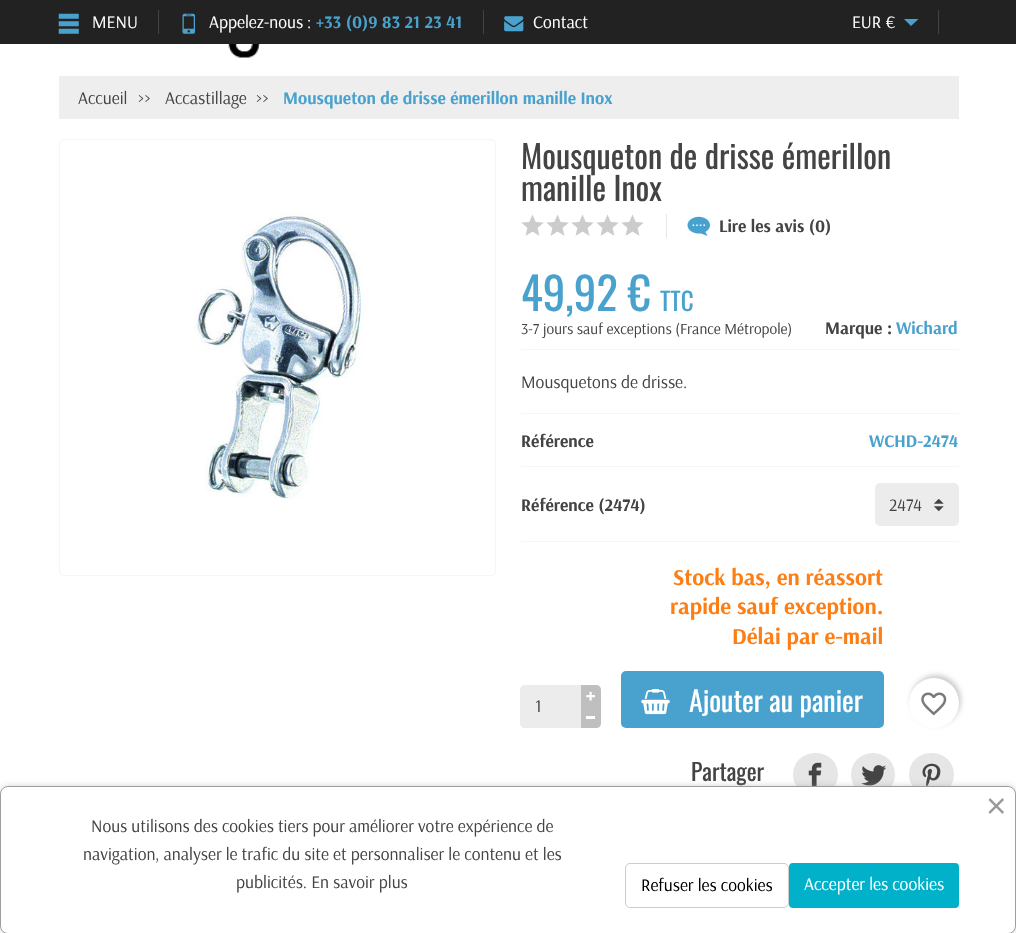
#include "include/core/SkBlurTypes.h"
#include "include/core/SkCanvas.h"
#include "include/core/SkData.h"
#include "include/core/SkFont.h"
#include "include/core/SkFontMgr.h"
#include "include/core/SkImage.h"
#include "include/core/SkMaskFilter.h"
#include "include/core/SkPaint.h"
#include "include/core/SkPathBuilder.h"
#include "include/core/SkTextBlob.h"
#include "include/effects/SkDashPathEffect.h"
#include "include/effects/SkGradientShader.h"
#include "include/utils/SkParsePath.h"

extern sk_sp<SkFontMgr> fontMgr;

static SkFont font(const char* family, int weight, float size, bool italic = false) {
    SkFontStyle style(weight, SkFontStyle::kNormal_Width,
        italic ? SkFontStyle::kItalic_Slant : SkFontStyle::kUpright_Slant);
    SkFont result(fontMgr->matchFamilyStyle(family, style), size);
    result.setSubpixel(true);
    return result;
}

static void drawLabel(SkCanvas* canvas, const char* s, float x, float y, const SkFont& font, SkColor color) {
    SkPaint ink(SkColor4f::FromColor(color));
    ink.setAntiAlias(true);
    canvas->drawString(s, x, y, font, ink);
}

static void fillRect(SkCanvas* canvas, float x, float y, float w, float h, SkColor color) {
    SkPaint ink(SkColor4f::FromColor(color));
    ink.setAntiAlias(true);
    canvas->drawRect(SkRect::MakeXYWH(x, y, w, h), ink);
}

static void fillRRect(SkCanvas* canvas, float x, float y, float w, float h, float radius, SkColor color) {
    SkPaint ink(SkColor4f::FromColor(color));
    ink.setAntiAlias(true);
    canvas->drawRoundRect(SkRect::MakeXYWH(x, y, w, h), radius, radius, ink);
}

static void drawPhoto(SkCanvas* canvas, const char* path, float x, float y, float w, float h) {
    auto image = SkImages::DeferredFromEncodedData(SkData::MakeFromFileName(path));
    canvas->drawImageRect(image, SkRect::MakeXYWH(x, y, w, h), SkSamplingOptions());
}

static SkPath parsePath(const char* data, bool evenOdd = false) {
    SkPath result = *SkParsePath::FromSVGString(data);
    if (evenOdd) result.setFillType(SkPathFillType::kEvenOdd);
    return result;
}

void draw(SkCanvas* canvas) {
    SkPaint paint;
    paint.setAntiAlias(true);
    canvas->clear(0xFFFFFFFF);
    fillRect(canvas, 0, 0, 1016, 44, 0xFF222222);
    fillRect(canvas, 158, 10, 1, 24, 0xFF434343);
    drawPhoto(canvas, "assets/img1.png", 58, 13, 21, 21);
    SkFont font1 = font("Arsenal", 400, 17.5f);
    drawLabel(canvas, "MENU", 92, 28, font1, 0xFFFFFFFF);
    fillRect(canvas, 483, 10, 1, 24, 0xFF434343);
    drawPhoto(canvas, "assets/img2.png", 182, 13, 13, 21);
    drawLabel(canvas, "Appelez-nous :", 209, 28, font1, 0xFFFFFFFF);
    SkFont font2 = font("Arsenal", 700, 17.5f);
    drawLabel(canvas, "+33 (0)9 83 21 23 41", 316, 28, font2, 0xFF49A2CE);
    drawPhoto(canvas, "assets/img3.png", 504, 16, 20, 16);
    drawLabel(canvas, "Contact", 533, 28, font1, 0xFFFFFFFF);
    fillRect(canvas, 938, 10, 1, 24, 0xFF434343);
    drawLabel(canvas, "EUR €", 852, 28, font1, 0xFFFFFFFF);
    paint.setColor(0xFF49A2CE);
    canvas->drawPath(parsePath("M904 19H918.5L911 26Z"), paint);
    drawPhoto(canvas, "assets/img4.png", 59, 44, 234, 14);
    fillRect(canvas, 59, 76, 900, 43, 0xFFEEEEEE);
    drawLabel(canvas, "Accueil", 78, 104, font1, 0xFF444444);
    drawLabel(canvas, ">>", 138, 104, font1, 0xFF444444);
    drawLabel(canvas, "Accastillage", 165, 104, font1, 0xFF444444);
    drawLabel(canvas, ">>", 256, 104, font1, 0xFF444444);
    drawLabel(canvas, "Mousqueton de drisse émerillon manille Inox", 283, 104, font2, 0xFF49A2CE);
    paint.setStroke(true);
    paint.setStrokeWidth(1);
    paint.setColor(0xFFF5F5F5);
    canvas->drawRoundRect(SkRect::MakeXYWH(59.5f, 139.5f, 436, 436), 4.5f, 4.5f, paint);
    drawPhoto(canvas, "assets/img5.png", 194, 212, 171, 287);
    SkFont font3 = font("Oswald", 400, 32.25f);
    drawLabel(canvas, "Mousqueton de drisse émerillon", 521, 169, font3, 0xFF444444);
    drawLabel(canvas, "manille Inox", 521, 201, font3, 0xFF444444);
    drawPhoto(canvas, "assets/img6.png", 521, 214, 23, 22);
    drawPhoto(canvas, "assets/img6.png", 546, 214, 23, 22);
    drawPhoto(canvas, "assets/img6.png", 571, 214, 23, 22);
    drawPhoto(canvas, "assets/img6.png", 596, 214, 23, 22);
    drawPhoto(canvas, "assets/img6.png", 621, 214, 23, 22);
    fillRect(canvas, 666, 214, 1, 24, 0xFFE6E6E6);
    drawPhoto(canvas, "assets/img7.png", 687, 216, 23, 20);
    drawLabel(canvas, "Lire les avis (0)", 719, 232, font2, 0xFF444444);
    SkFont font4 = font("Oswald", 400, 45);
    drawLabel(canvas, "49,92 €", 521, 311, font4, 0xFF49A2CE);
    SkFont font5 = font("Oswald", 400, 25);
    drawLabel(canvas, "TTC", 660, 311, font5, 0xFF49A2CE);
    SkFont font6 = font("Arsenal", 400, 15.3f);
    drawLabel(canvas, "3-7 jours sauf exceptions (France Métropole)", 521, 334, font6, 0xFF444444);
    drawLabel(canvas, "Marque :", 825, 334, font2, 0xFF444444);
    drawLabel(canvas, "Wichard", 896, 334, font2, 0xFF49A2CE);
    fillRect(canvas, 521, 349, 438, 1, 0xFFF5F5F5);
    fillRect(canvas, 521, 413, 438, 1, 0xFFF5F5F5);
    drawLabel(canvas, "Mousquetons de drisse.", 521, 388, font1, 0xFF444444);
    fillRect(canvas, 521, 466, 438, 1, 0xFFF5F5F5);
    drawLabel(canvas, "Référence", 521, 447, font2, 0xFF444444);
    drawLabel(canvas, "WCHD-2474", 869, 447, font2, 0xFF49A2CE);
    fillRect(canvas, 521, 541, 438, 1, 0xFFF5F5F5);
    drawLabel(canvas, "Référence (2474)", 521, 511, font2, 0xFF444444);
    fillRRect(canvas, 875, 483, 84, 43, 5, 0xFFECECEC);
    drawPhoto(canvas, "assets/img8.png", 934, 499, 10, 12);
    drawLabel(canvas, "2474", 889, 511, font1, 0xFF444444);
    paint.setStroke(false);
    paint.setColor(0xFFECECEC);
    canvas->drawPath(parsePath("M525 685H581V728H525C522 728 520 726 520 723V690C520 687 522 685 525 685Z"), paint);
    drawLabel(canvas, "1", 535, 712, font1, 0xFF444444);
    paint.setColor(0xFFBFBFBF);
    canvas->drawPath(parsePath("M581 685H596C599 685 601 687 601 690V706H581Z"), paint);
    drawPhoto(canvas, "assets/img9.png", 586, 691, 9, 10);
    canvas->drawPath(parsePath("M581 706H601V723C601 726 599 728 596 728H581Z"), paint);
    fillRect(canvas, 586, 716, 9, 3, 0xFFFFFFFF);
    SkFont font7 = font("Arsenal", 700, 22.75f);
    drawLabel(canvas, "Stock bas, en réassort", 673, 585, font7, 0xFFFD7E14);
    drawLabel(canvas, "rapide sauf exception.", 670, 614, font7, 0xFFFD7E14);
    drawLabel(canvas, "Délai par e-mail", 732, 644, font7, 0xFFFD7E14);
    fillRRect(canvas, 621, 671, 263, 57, 5, 0xFF49A2CE);
    drawPhoto(canvas, "assets/img10.png", 641, 689, 29, 26);
    SkFont font8 = font("Oswald", 400, 28);
    drawLabel(canvas, "Ajouter au panier", 689, 712, font8, 0xFFFFFFFF);
    paint.setColor(0x33000000);
    paint.setMaskFilter(SkMaskFilter::MakeBlur(kNormal_SkBlurStyle, 2.5f));
    canvas->drawRoundRect(SkRect::MakeXYWH(911, 675, 50, 50), 25, 25, paint);
    paint.setMaskFilter(nullptr);
    paint.setColor(0xFFFFFFFF);
    canvas->drawCircle(934, 703, 25, paint);
    drawPhoto(canvas, "assets/img11.png", 921, 692, 26, 24);
    SkFont font9 = font("Oswald", 400, 23.5f);
    drawLabel(canvas, "Partager", 691, 781, font9, 0xFF444444);
    fillRRect(canvas, 793, 753, 45, 43, 21.5f, 0xFFE6E6E6);
    drawPhoto(canvas, "assets/img12.png", 808, 762, 14, 24);
    fillRRect(canvas, 851, 753, 44, 43, 21.5f, 0xFFE6E6E6);
    drawPhoto(canvas, "assets/img13.png", 861, 765, 26, 21);
    fillRRect(canvas, 909, 753, 45, 43, 21.5f, 0xFFE6E6E6);
    drawPhoto(canvas, "assets/img14.png", 922, 763, 19, 23);
    paint.setColor(0xFF9E9E9E);
    paint.setMaskFilter(SkMaskFilter::MakeBlur(kNormal_SkBlurStyle, 4.5f));
    canvas->drawRoundRect(SkRect::MakeXYWH(3, 789, 1011, 142), 5, 5, paint);
    paint.setMaskFilter(nullptr);
    paint.setColor(0xFFFFFFFF);
    canvas->drawRoundRect(SkRect::MakeXYWH(0.5f, 786.5f, 1015, 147), 7.5f, 7.5f, paint);
    paint.setStroke(true);
    paint.setColor(0xFF9E9E9E);
    canvas->drawRoundRect(SkRect::MakeXYWH(0.5f, 786.5f, 1015, 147), 7.5f, 7.5f, paint);
    paint.setStroke(false);
    paint.setColor(0xFF999999);
    canvas->drawPath(parsePath("M988.5 812L1002.5 798L1004 800L990 814Z"), paint);
    canvas->drawPath(parsePath("M990 798L1004 812L1002.5 814L988.5 800Z"), paint);
    drawLabel(canvas, "Nous utilisons des cookies tiers pour améliorer votre expérience de", 91, 832, font1, 0xFF444444);
    drawLabel(canvas, "navigation, analyser le trafic du site et personnaliser le contenu et les", 83, 860, font1, 0xFF444444);
    drawLabel(canvas, "publicités. En savoir plus", 236, 888, font1, 0xFF444444);
    paint.setStroke(true);
    paint.setColor(0xFFCCCCCC);
    canvas->drawRoundRect(SkRect::MakeXYWH(625.5f, 863.5f, 163, 44), 4.5f, 4.5f, paint);
    drawLabel(canvas, "Refuser les cookies", 641, 891, font1, 0xFF000000);
    fillRRect(canvas, 789, 863, 170, 45, 4, 0xFF00B1C9);
    drawLabel(canvas, "Accepter les cookies", 804, 890, font1, 0xFFFFFFFF);
}
